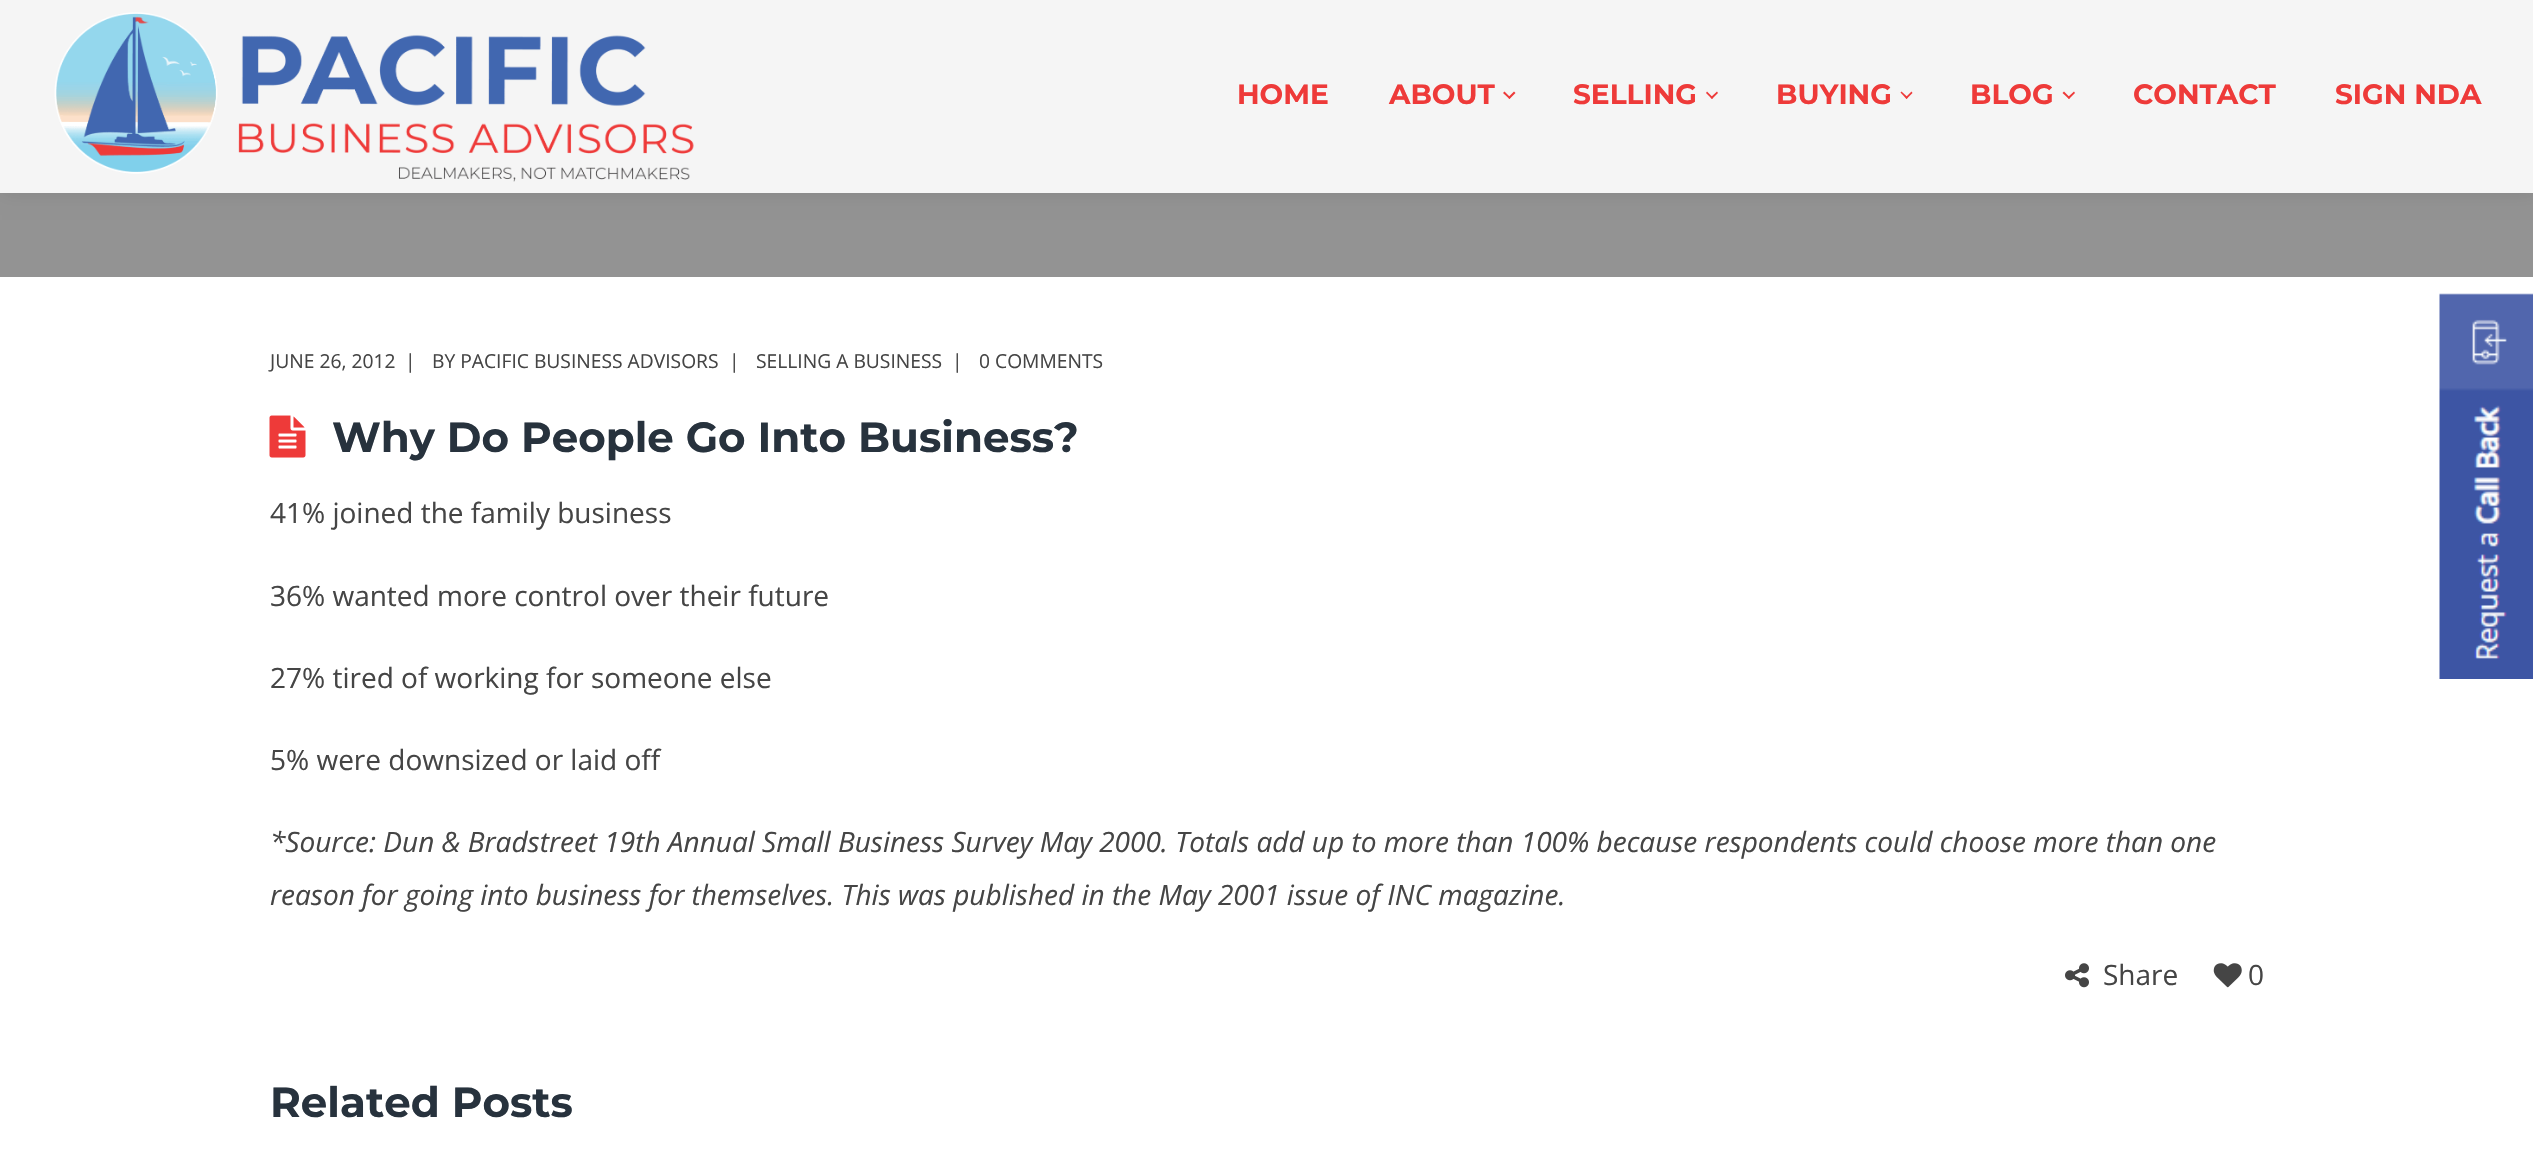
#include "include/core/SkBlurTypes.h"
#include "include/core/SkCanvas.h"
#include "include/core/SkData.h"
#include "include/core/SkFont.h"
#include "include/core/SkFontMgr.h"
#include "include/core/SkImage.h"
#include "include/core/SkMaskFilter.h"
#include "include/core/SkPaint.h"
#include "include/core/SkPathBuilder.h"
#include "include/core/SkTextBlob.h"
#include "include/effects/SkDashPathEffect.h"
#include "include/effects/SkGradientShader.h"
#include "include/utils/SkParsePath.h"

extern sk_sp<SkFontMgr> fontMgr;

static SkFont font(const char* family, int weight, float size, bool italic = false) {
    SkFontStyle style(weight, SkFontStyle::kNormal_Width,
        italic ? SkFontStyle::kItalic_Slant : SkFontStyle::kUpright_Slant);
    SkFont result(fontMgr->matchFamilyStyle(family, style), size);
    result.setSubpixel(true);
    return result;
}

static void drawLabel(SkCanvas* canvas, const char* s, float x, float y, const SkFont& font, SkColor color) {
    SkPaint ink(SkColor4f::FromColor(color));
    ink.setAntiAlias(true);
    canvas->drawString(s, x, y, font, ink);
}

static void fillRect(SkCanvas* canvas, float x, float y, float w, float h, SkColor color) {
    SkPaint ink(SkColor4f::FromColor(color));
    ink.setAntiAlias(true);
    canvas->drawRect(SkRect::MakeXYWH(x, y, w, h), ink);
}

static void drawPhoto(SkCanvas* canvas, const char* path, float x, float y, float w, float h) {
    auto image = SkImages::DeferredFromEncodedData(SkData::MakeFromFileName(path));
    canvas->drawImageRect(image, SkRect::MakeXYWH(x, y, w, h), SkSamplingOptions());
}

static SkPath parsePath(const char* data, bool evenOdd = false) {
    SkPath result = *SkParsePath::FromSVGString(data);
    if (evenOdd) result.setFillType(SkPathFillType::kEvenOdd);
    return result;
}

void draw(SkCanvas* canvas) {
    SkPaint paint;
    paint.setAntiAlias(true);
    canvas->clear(0xFFFFFFFF);
    fillRect(canvas, 0, 193, 2533, 84, 0xFF939393);
    paint.setColor(0x1A000000);
    paint.setMaskFilter(SkMaskFilter::MakeBlur(kNormal_SkBlurStyle, 9));
    canvas->drawRect(SkRect::MakeXYWH(2, 0, 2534, 193), paint);
    paint.setMaskFilter(nullptr);
    fillRect(canvas, 0, 0, 2533, 193, 0xFFF5F5F5);
    drawPhoto(canvas, "assets/img1.png", 54, 12, 640, 170);
    SkFont font1 = font("Montserrat", 100, 28);
    drawLabel(canvas, "HOME", 1237, 104, font1, 0xFFEE3A39);
    drawLabel(canvas, "ABOUT", 1389, 104, font1, 0xFFEE3A39);
    paint.setColor(0xFFEE3A39);
    canvas->drawPath(parsePath("M1509.5 99L1503 93L1504.5 91.5L1510.5 97.5Z"), paint);
    canvas->drawPath(parsePath("M1509.5 99L1508 97.5L1514 91.5L1515.5 93Z"), paint);
    drawLabel(canvas, "SELLING", 1573, 104, font1, 0xFFEE3A39);
    canvas->drawPath(parsePath("M1712 99L1706 93L1707 91.5L1713 97.5Z"), paint);
    canvas->drawPath(parsePath("M1712 99L1710.5 97.5L1717 91.5L1718 93Z"), paint);
    drawLabel(canvas, "BUYING", 1776, 104, font1, 0xFFEE3A39);
    canvas->drawPath(parsePath("M1906.5 99L1900.5 92.5L1901.5 91.5L1908 97.5Z"), paint);
    canvas->drawPath(parsePath("M1906.5 99L1905.5 97.5L1911.5 91.5L1912.5 93Z"), paint);
    drawLabel(canvas, "BLOG", 1970, 104, font1, 0xFFEE3A39);
    canvas->drawPath(parsePath("M2069 99L2062.5 93L2064 91.5L2070 97.5Z"), paint);
    canvas->drawPath(parsePath("M2069 99L2067.5 97.5L2074 91.5L2075 93Z"), paint);
    drawLabel(canvas, "CONTACT", 2133, 104, font1, 0xFFEE3A39);
    drawLabel(canvas, "SIGN NDA", 2335, 104, font1, 0xFFEE3A39);
    SkFont font2 = font("Open Sans", 400, 19.25f);
    drawLabel(canvas, "JUNE 26, 2012", 270, 368, font2, 0xFF454545);
    drawLabel(canvas, "|", 405, 368, font2, 0xFF454545);
    drawLabel(canvas, "BY PACIFIC BUSINESS ADVISORS", 432, 368, font2, 0xFF454545);
    drawLabel(canvas, "|", 729, 368, font2, 0xFF454545);
    drawLabel(canvas, "SELLING A BUSINESS", 756, 368, font2, 0xFF454545);
    drawLabel(canvas, "|", 952, 368, font2, 0xFF454545);
    drawLabel(canvas, "0 COMMENTS", 979, 368, font2, 0xFF454545);
    drawPhoto(canvas, "assets/img2.png", 269, 415, 37, 43);
    SkFont font3 = font("Montserrat", 100, 42);
    drawLabel(canvas, "Why Do People Go Into Business?", 332, 452, font3, 0xFF27323D);
    SkFont font4 = font("Open Sans", 400, 28);
    drawLabel(canvas, "41% joined the family business", 270, 523, font4, 0xFF454545);
    drawLabel(canvas, "36% wanted more control over their future", 270, 606, font4, 0xFF454545);
    drawLabel(canvas, "27% tired of working for someone else", 270, 688, font4, 0xFF454545);
    drawLabel(canvas, "5% were downsized or laid off", 270, 770, font4, 0xFF454545);
    SkFont font5 = font("Open Sans", 400, 28, true);
    drawLabel(canvas, "*Source: Dun & Bradstreet 19th Annual Small Business Survey May 2000. Totals add up to more than 100% because respondents could choose more than one", 270, 852, font5, 0xFF454545);
    drawLabel(canvas, "reason for going into business for themselves. This was published in the May 2001 issue of INC magazine.", 270, 905, font5, 0xFF454545);
    drawPhoto(canvas, "assets/img3.png", 2065, 963, 24, 25);
    drawLabel(canvas, "Share", 2103, 985, font4, 0xFF454545);
    drawPhoto(canvas, "assets/img4.png", 2213, 963, 29, 25);
    drawLabel(canvas, "0", 2248, 985, font4, 0xFF454545);
    drawLabel(canvas, "Related Posts", 270, 1117, font3, 0xFF27323D);
    drawPhoto(canvas, "assets/img5.png", 2439, 293, 94, 386);
}
